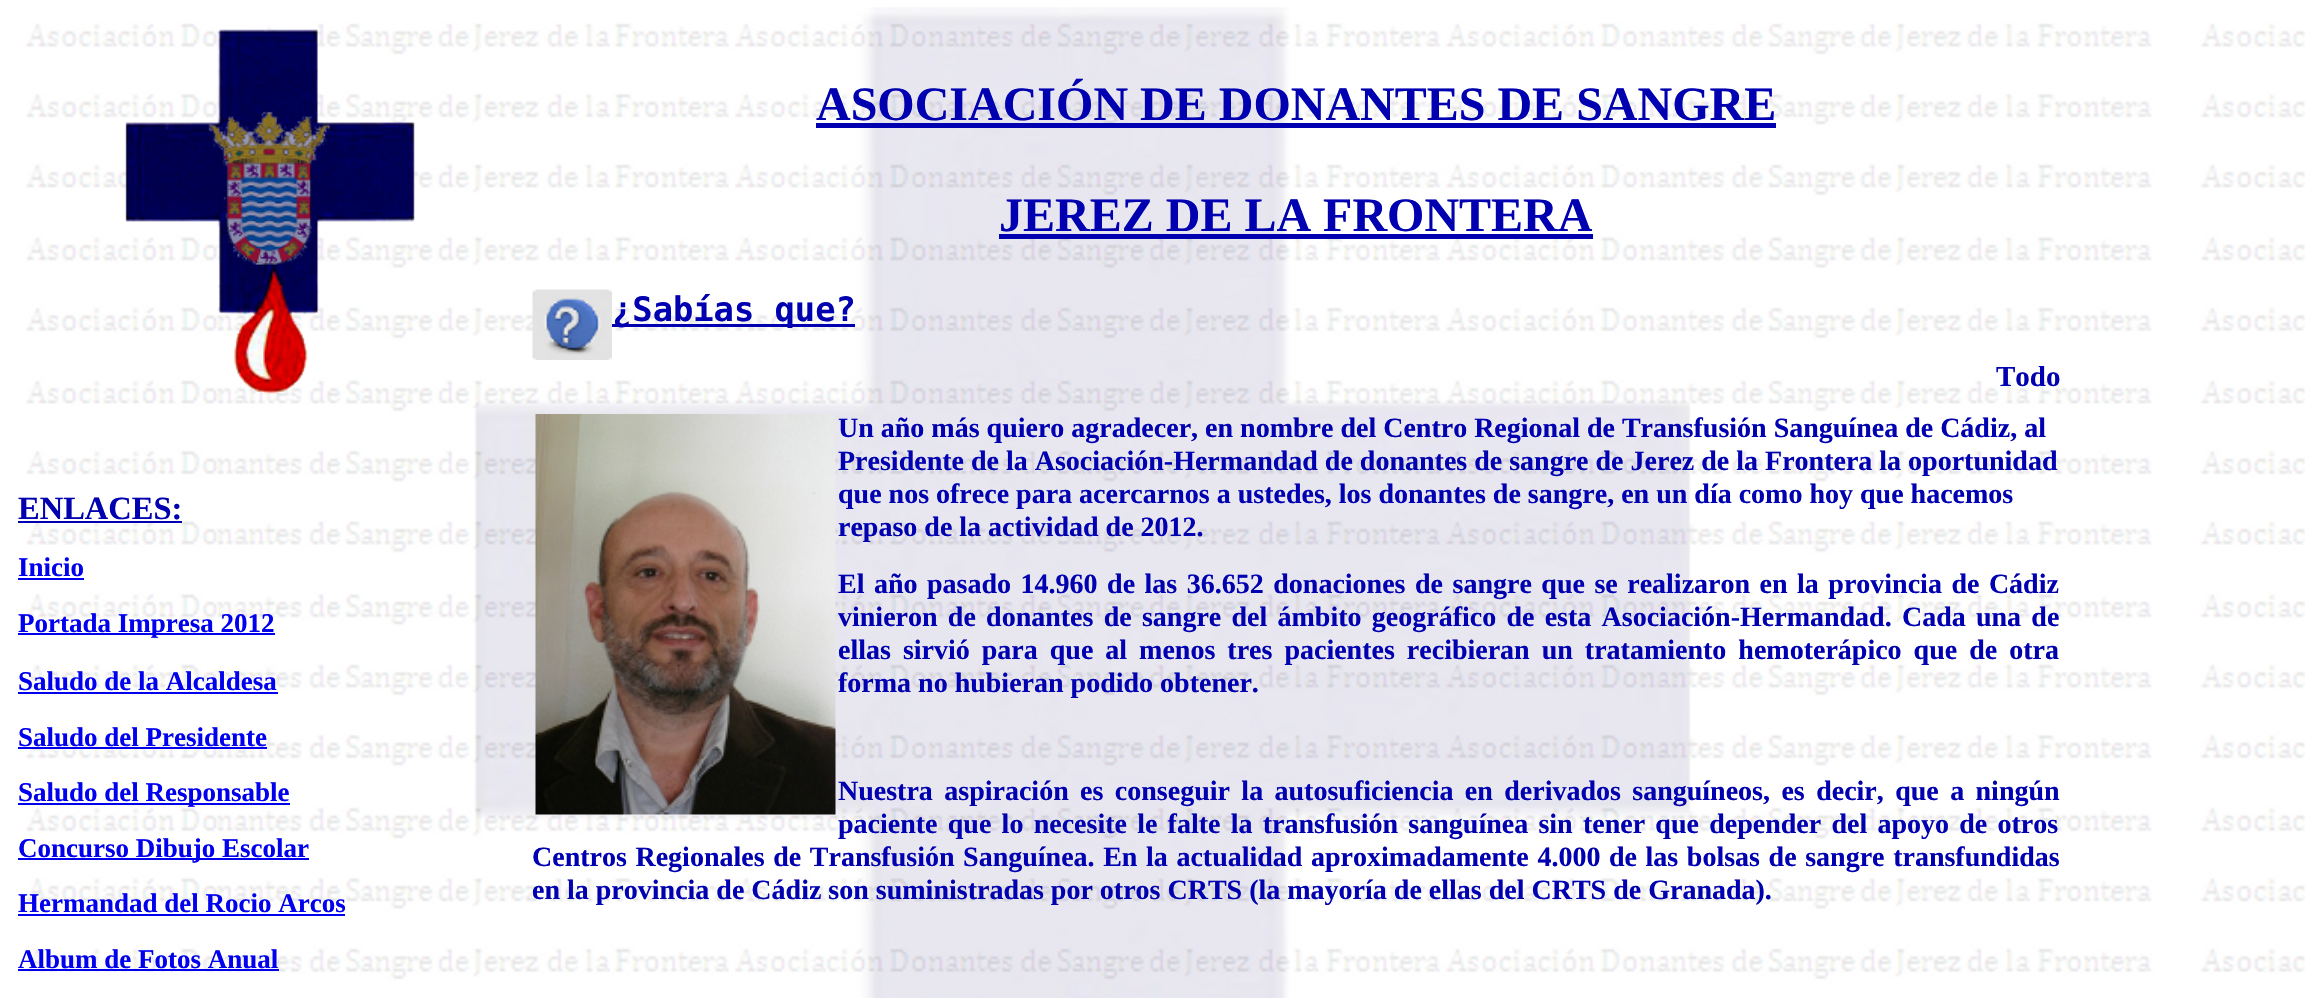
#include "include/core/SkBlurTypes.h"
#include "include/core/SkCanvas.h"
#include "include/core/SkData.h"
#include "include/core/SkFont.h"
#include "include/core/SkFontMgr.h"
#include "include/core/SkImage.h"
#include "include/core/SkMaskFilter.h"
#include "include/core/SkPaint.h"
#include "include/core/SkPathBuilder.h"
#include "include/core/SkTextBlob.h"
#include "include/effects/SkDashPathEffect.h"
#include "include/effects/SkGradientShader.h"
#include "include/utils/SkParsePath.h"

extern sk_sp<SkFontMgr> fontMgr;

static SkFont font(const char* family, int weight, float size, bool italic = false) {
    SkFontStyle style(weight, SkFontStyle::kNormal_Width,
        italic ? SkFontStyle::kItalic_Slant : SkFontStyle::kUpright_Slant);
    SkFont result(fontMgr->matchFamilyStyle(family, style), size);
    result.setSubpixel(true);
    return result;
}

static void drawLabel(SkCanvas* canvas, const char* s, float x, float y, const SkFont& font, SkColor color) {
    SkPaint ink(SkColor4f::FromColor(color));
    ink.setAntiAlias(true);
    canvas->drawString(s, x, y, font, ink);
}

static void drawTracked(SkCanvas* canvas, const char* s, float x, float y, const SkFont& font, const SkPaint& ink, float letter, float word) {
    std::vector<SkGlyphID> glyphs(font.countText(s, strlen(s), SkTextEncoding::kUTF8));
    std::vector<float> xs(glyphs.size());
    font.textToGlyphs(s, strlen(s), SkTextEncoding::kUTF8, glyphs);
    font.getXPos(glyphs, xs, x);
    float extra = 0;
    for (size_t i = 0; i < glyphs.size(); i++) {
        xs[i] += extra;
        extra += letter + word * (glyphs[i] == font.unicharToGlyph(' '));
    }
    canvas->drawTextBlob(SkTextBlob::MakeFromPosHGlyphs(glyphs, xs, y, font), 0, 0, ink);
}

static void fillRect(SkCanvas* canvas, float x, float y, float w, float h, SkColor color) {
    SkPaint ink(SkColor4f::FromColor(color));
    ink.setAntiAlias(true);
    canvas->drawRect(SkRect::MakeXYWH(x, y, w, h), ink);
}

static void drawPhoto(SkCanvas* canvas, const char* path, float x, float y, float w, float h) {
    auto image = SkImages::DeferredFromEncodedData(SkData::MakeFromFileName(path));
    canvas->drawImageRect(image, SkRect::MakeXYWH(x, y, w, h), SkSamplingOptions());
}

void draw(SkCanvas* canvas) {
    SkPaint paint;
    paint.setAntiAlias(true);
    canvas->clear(0xFFFFFFFF);
    drawPhoto(canvas, "assets/img1.png", 26, 7, 2279, 991);
    drawPhoto(canvas, "assets/img2.png", 125, 29, 290, 365);
    SkFont font1 = font("Liberation Serif", 700, 48);
    drawLabel(canvas, "ASOCIACIÓN DE DONANTES DE SANGRE", 816, 120, font1, 0xFF0000B1);
    fillRect(canvas, 816, 123, 960, 5, 0xFF0000B1);
    drawLabel(canvas, "JEREZ DE LA FRONTERA", 999, 231, font1, 0xFF0000B1);
    fillRect(canvas, 999, 234, 594, 5, 0xFF0000B1);
    drawPhoto(canvas, "assets/img3.png", 532, 289, 80, 71);
    fillRect(canvas, 612, 324, 243, 3, 0xFF0000B1);
    SkFont font2 = font("DejaVu Sans Mono", 700, 33.75f);
    drawLabel(canvas, "¿Sabías que?", 612, 321, font2, 0xFF0000B1);
    SkFont font3 = font("Liberation Serif", 700, 29);
    drawLabel(canvas, "Todo", 1996, 386, font3, 0xFF0000B1);
    SkFont font4 = font("Liberation Serif", 700, 32.5f);
    drawLabel(canvas, "ENLACES:", 18, 519, font4, 0xFF0000B1);
    fillRect(canvas, 18, 521, 164, 2, 0xFF0000B1);
    SkFont font5 = font("Liberation Serif", 700, 27);
    drawLabel(canvas, "Inicio", 18, 576, font5, 0xFF0000EE);
    fillRect(canvas, 18, 578, 66, 2, 0xFF0000EE);
    fillRect(canvas, 18, 633, 257, 2, 0xFF0000EE);
    drawLabel(canvas, "Portada Impresa 2012", 18, 632, font5, 0xFF0000EE);
    drawLabel(canvas, "Saludo de la Alcaldesa", 18, 690, font5, 0xFF0000EE);
    fillRect(canvas, 18, 692, 260, 2, 0xFF0000EE);
    drawLabel(canvas, "Saludo del Presidente", 18, 746, font5, 0xFF0000EE);
    fillRect(canvas, 18, 747, 249, 2, 0xFF0000EE);
    fillRect(canvas, 18, 803, 272, 2, 0xFF0000EE);
    drawLabel(canvas, "Saludo del Responsable", 18, 801, font5, 0xFF0000EE);
    fillRect(canvas, 18, 858, 291, 2, 0xFF0000EE);
    drawLabel(canvas, "Concurso Dibujo Escolar", 18, 857, font5, 0xFF0000EE);
    drawLabel(canvas, "Hermandad del Rocio Arcos", 18, 912, font5, 0xFF0000EE);
    fillRect(canvas, 18, 914, 327, 2, 0xFF0000EE);
    drawLabel(canvas, "Album de Fotos Anual", 18, 968, font5, 0xFF0000EE);
    fillRect(canvas, 18, 969, 261, 2, 0xFF0000EE);
    drawPhoto(canvas, "assets/img4.png", 535, 414, 301, 401);
    SkFont font6 = font("Liberation Serif", 700, 28);
    drawLabel(canvas, "Un año más quiero agradecer, en nombre del Centro Regional de Transfusión Sanguínea de Cádiz, al", 838, 437, font6, 0xFF0000B1);
    drawLabel(canvas, "Presidente de la Asociación-Hermandad de donantes de sangre de Jerez de la Frontera la oportunidad", 838, 470, font6, 0xFF0000B1);
    drawLabel(canvas, "que nos ofrece para acercarnos a ustedes, los donantes de sangre, en un día como hoy que hacemos", 838, 503, font6, 0xFF0000B1);
    drawLabel(canvas, "repaso de la actividad de 2012.", 838, 536, font6, 0xFF0000B1);
    paint.setColor(0xFF0000B1);
    drawTracked(canvas, "El año pasado 14.960 de las 36.652 donaciones de sangre que se realizaron en la provincia de Cádiz", 838, 593, font6, paint, 0, 2.5f);
    drawTracked(canvas, "vinieron de donantes de sangre del ámbito geográfico de esta Asociación-Hermandad. Cada una de", 838, 626, font6, paint, 0, 3.25f);
    drawTracked(canvas, "ellas sirvió para que al menos tres pacientes recibieran un tratamiento hemoterápico que de otra", 838, 659, font6, paint, 0, 5);
    drawLabel(canvas, "forma no hubieran podido obtener.", 838, 692, font6, 0xFF0000B1);
    drawTracked(canvas, "Nuestra aspiración es conseguir la autosuficiencia en derivados sanguíneos, es decir, que a ningún", 838, 800, font6, paint, 0, 4.4f);
    drawTracked(canvas, "paciente que lo necesite le falte la transfusión sanguínea sin tener que depender del apoyo de otros", 838, 833, font6, paint, 0, 3.25f);
    drawTracked(canvas, "Centros Regionales de Transfusión Sanguínea. En la actualidad aproximadamente 4.000 de las bolsas de sangre transfundidas", 532, 866, font6, paint, 0, 1.6f);
    drawLabel(canvas, "en la provincia de Cádiz son suministradas por otros CRTS (la mayoría de ellas del CRTS de Granada).", 532, 899, font6, 0xFF0000B1);
}
